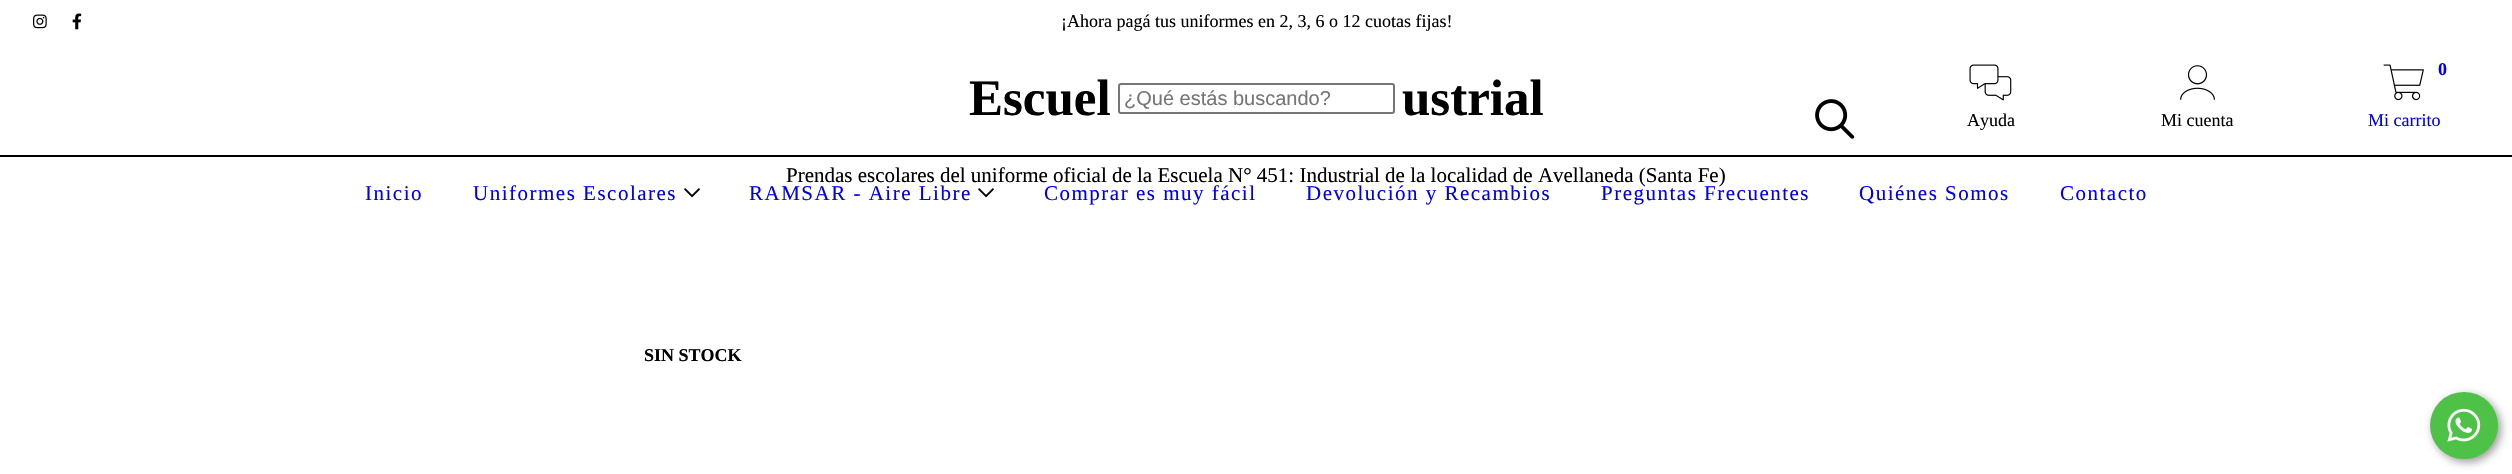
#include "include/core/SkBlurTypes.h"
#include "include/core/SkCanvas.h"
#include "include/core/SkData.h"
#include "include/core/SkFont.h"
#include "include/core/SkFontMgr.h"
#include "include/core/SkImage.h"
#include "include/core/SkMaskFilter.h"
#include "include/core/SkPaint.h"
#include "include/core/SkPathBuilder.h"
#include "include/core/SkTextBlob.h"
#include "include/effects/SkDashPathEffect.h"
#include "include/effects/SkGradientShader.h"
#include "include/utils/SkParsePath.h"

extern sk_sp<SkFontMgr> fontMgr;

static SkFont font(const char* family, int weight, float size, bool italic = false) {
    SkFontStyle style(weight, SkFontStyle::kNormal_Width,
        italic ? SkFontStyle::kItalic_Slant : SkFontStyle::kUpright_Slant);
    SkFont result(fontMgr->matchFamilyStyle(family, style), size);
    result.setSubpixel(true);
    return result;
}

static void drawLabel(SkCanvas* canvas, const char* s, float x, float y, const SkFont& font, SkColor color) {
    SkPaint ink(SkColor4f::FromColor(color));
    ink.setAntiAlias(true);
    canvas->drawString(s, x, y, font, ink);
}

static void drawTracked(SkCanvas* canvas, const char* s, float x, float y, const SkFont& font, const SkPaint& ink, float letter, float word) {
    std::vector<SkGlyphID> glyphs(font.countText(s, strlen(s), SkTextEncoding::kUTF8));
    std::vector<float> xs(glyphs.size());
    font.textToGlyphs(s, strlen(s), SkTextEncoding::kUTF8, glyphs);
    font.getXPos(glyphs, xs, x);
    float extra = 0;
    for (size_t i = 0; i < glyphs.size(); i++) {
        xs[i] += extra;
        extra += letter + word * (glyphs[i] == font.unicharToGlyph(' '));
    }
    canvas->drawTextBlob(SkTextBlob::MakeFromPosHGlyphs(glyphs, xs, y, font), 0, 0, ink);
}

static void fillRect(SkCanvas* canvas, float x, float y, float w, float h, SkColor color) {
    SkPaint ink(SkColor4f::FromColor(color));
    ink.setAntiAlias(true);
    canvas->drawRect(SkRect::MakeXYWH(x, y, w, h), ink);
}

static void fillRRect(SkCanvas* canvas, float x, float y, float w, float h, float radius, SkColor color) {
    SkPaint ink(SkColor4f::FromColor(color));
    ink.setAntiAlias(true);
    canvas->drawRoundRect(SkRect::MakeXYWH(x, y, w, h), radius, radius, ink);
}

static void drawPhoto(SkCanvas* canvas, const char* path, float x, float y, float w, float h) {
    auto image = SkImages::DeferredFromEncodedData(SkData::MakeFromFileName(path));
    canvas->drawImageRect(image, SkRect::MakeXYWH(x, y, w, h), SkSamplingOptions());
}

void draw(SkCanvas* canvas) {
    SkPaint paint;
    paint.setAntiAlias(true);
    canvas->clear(0xFFFFFFFF);
    drawPhoto(canvas, "assets/img1.png", 33, 14, 14, 15);
    drawPhoto(canvas, "assets/img2.png", 72, 13, 10, 17);
    SkFont font1 = font("Liberation Serif", 400, 18);
    drawLabel(canvas, "¡Ahora pagá tus uniformes en 2, 3, 6 o 12 cuotas fijas!", 1061, 27, font1, 0xFF000000);
    paint.setStroke(true);
    paint.setStrokeWidth(2);
    paint.setColor(0xFF767676);
    canvas->drawRoundRect(SkRect::MakeXYWH(1119, 84, 275, 29), 2, 2, paint);
    SkFont font2 = font("Liberation Sans", 400, 20);
    drawLabel(canvas, "¿Qué estás buscando?", 1124, 105, font2, 0xFF757575);
    drawPhoto(canvas, "assets/img3.png", 1815, 99, 40, 40);
    drawPhoto(canvas, "assets/img4.png", 1969, 64, 43, 37);
    drawLabel(canvas, "Ayuda", 1967, 126, font1, 0xFF000000);
    drawPhoto(canvas, "assets/img5.png", 2180, 65, 35, 35);
    drawLabel(canvas, "Mi cuenta", 2161, 126, font1, 0xFF000000);
    drawPhoto(canvas, "assets/img6.png", 2383, 64, 41, 37);
    SkFont font3 = font("Liberation Serif", 700, 18);
    drawLabel(canvas, "0", 2438, 75, font3, 0xFF0000EE);
    drawLabel(canvas, "Mi carrito", 2368, 126, font1, 0xFF0000EE);
    fillRect(canvas, 0, 155, 2512, 2, 0xFF000000);
    SkFont font4 = font("Liberation Serif", 400, 21);
    paint.setStroke(false);
    paint.setColor(0xFF0000EE);
    drawTracked(canvas, "Inicio", 365, 200, font4, paint, 1.5f, 0);
    drawTracked(canvas, "Uniformes Escolares", 473, 200, font4, paint, 1.5f, 0);
    drawPhoto(canvas, "assets/img7.png", 684, 188, 16, 10);
    drawTracked(canvas, "RAMSAR - Aire Libre", 749, 200, font4, paint, 1.5f, 0);
    drawPhoto(canvas, "assets/img7.png", 978, 188, 16, 10);
    drawTracked(canvas, "Comprar es muy fácil", 1044, 200, font4, paint, 1.5f, 0);
    drawTracked(canvas, "Devolución y Recambios", 1306, 200, font4, paint, 1.5f, 0);
    drawTracked(canvas, "Preguntas Frecuentes", 1601, 200, font4, paint, 1.5f, 0);
    drawTracked(canvas, "Quiénes Somos", 1859, 200, font4, paint, 1.5f, 0);
    drawTracked(canvas, "Contacto", 2060, 200, font4, paint, 1.5f, 0);
    SkFont font5 = font("Liberation Serif", 700, 51);
    drawLabel(canvas, "Escuel", 969, 115, font5, 0xFF000000);
    drawLabel(canvas, "ustrial", 1402, 115, font5, 0xFF000000);
    drawLabel(canvas, "Prendas escolares del uniforme oficial de la Escuela N° 451: Industrial de la localidad de Avellaneda (Santa Fe)", 786, 182, font4, 0xFF000000);
    drawLabel(canvas, "SIN STOCK", 644, 361, font3, 0xFF000000);
    paint.setColor(0x66000000);
    paint.setMaskFilter(SkMaskFilter::MakeBlur(kNormal_SkBlurStyle, 4.5f));
    canvas->drawRoundRect(SkRect::MakeXYWH(2433, 395, 68, 67), 33.5f, 33.5f, paint);
    paint.setMaskFilter(nullptr);
    fillRRect(canvas, 2430, 392, 68, 67, 33.5f, 0xFF4DC247);
    drawPhoto(canvas, "assets/img8.png", 2447, 408, 34, 34);
}
